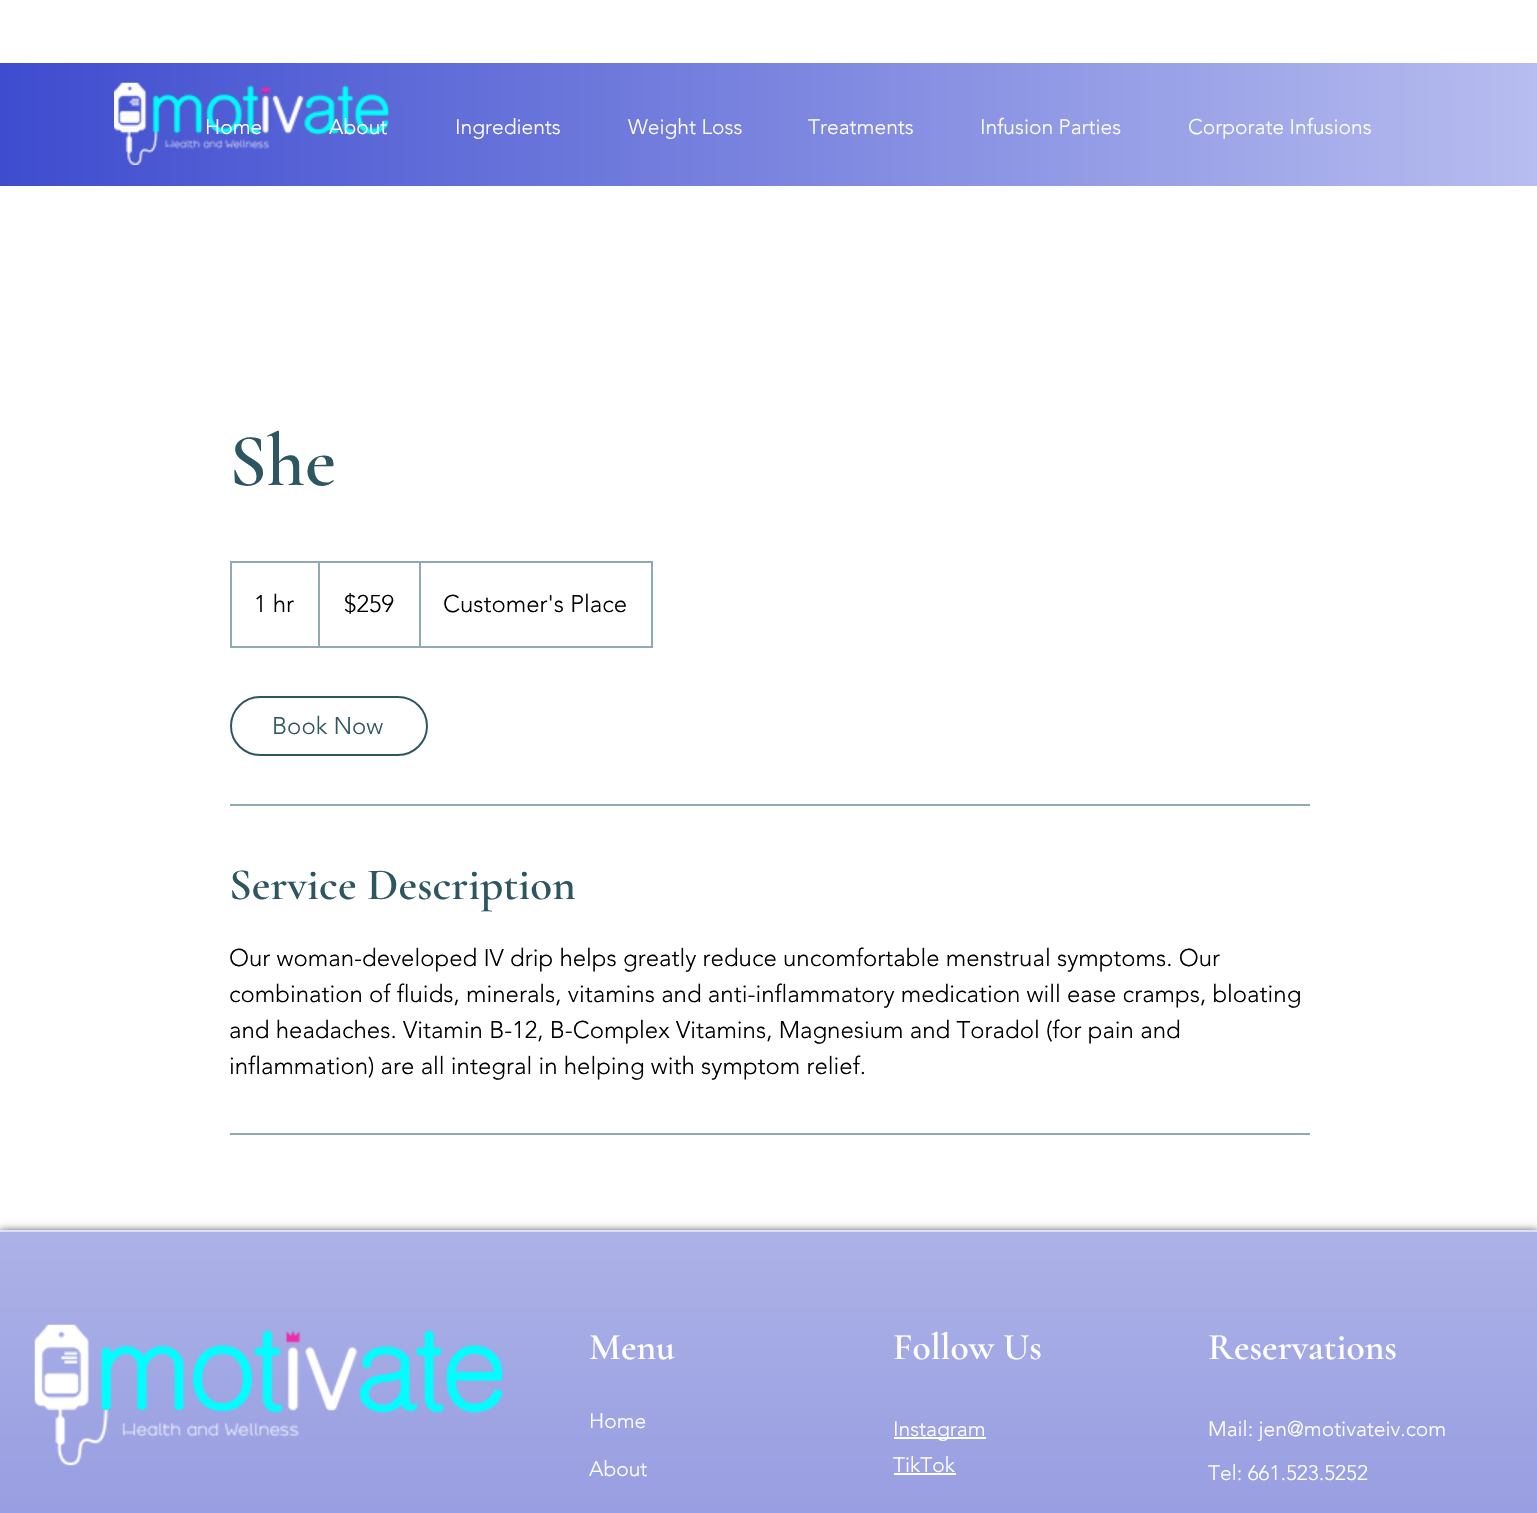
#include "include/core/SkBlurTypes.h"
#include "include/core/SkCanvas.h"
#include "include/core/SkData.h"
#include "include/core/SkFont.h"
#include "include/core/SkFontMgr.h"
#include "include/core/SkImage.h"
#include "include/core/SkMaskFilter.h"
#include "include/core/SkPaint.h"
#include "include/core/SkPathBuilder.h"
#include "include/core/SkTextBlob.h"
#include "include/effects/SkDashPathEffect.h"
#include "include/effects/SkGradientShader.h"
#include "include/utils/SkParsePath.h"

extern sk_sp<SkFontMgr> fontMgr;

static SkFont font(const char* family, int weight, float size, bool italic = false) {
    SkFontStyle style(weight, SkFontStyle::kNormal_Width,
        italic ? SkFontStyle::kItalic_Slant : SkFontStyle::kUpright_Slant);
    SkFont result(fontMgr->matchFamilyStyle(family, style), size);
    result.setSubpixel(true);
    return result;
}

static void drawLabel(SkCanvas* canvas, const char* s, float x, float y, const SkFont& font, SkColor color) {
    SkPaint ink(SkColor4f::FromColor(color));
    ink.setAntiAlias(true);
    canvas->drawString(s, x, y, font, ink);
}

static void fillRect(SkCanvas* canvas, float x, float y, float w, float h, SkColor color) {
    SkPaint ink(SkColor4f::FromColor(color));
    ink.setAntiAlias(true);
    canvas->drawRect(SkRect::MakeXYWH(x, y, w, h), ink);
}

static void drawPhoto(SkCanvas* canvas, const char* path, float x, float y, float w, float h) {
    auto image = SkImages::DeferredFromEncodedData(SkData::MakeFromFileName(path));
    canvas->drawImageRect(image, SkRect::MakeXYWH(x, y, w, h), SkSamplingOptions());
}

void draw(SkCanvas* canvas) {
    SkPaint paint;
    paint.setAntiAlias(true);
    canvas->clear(0xFFFFFFFF);
    {
        const SkColor colors[] = {0xFF3E4CCF, 0xFFB7BDEF};
        const float stops[] = {0, 1};
        const SkPoint ends[] = {{0, 125}, {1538, 124}};
        paint.setShader(SkGradientShader::MakeLinear(ends, colors, stops, 2, SkTileMode::kClamp));
        paint.setAlpha(255);
    }
    canvas->drawRect(SkRect::MakeXYWH(0, 63, 1537, 123), paint);
    drawPhoto(canvas, "assets/img1.png", 114, 82, 275, 83);
    SkFont font1 = font("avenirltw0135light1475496", 300, 21);
    drawLabel(canvas, "Home", 205, 134, font1, 0xFFFFFFFF);
    drawLabel(canvas, "About", 329, 134, font1, 0xFFFFFFFF);
    drawLabel(canvas, "Ingredients", 455, 134, font1, 0xFFFFFFFF);
    drawLabel(canvas, "Weight Loss", 628, 134, font1, 0xFFFFFFFF);
    drawLabel(canvas, "Treatments", 808, 134, font1, 0xFFFFFFFF);
    drawLabel(canvas, "Infusion Parties", 980, 134, font1, 0xFFFFFFFF);
    drawLabel(canvas, "Corporate Infusions", 1188, 134, font1, 0xFFFFFFFF);
    SkFont font2 = font("Cormorant Garamond", 600, 75);
    drawLabel(canvas, "She", 229, 485, font2, 0xFF2D5661);
    paint.setStroke(true);
    paint.setStrokeWidth(2);
    paint.setShader(nullptr);
    paint.setColor(0xFF91A9B0);
    canvas->drawRect(SkRect::MakeXYWH(231, 562, 421, 85), paint);
    SkFont font3 = font("avenirltw0135light1475496", 300, 24);
    drawLabel(canvas, "1 hr", 254, 612, font3, 0xFF000000);
    fillRect(canvas, 318, 563, 2, 84, 0xFF91A9B0);
    drawLabel(canvas, "$259", 344, 612, font3, 0xFF000000);
    fillRect(canvas, 419, 563, 2, 84, 0xFF91A9B0);
    drawLabel(canvas, "Customer's Place", 443, 612, font3, 0xFF000000);
    paint.setColor(0xFF2D5661);
    canvas->drawRoundRect(SkRect::MakeXYWH(231, 697, 196, 58), 29, 29, paint);
    drawLabel(canvas, "Book Now", 272, 734, font3, 0xFF2D5661);
    fillRect(canvas, 230, 804, 1080, 2, 0xFF91A9B0);
    SkFont font4 = font("Cormorant Garamond", 600, 45);
    drawLabel(canvas, "Service Description", 229, 899, font4, 0xFF2D5661);
    drawLabel(canvas, "Our woman-developed IV drip helps greatly reduce uncomfortable menstrual symptoms. Our", 229, 966, font3, 0xFF000000);
    drawLabel(canvas, "combination of fluids, minerals, vitamins and anti-inflammatory medication will ease cramps, bloating", 229, 1002, font3, 0xFF000000);
    drawLabel(canvas, "and headaches. Vitamin B-12, B-Complex Vitamins, Magnesium and Toradol (for pain and", 229, 1038, font3, 0xFF000000);
    drawLabel(canvas, "inflammation) are all integral in helping with symptom relief.", 229, 1074, font3, 0xFF000000);
    fillRect(canvas, 230, 1133, 1080, 2, 0xFF91A9B0);
    paint.setStroke(false);
    paint.setColor(0x99000000);
    paint.setMaskFilter(SkMaskFilter::MakeBlur(kNormal_SkBlurStyle, 4));
    canvas->drawRect(SkRect::MakeXYWH(0, 1230, 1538, 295), paint);
    paint.setMaskFilter(nullptr);
    fillRect(canvas, 0, 1232, 1537, 281, 0xFF9097DF);
    drawPhoto(canvas, "assets/img2.png", 0, 1232, 1537, 281);
    fillRect(canvas, 0, 1230, 1537, 2, 0xFFDEE0F5);
    drawPhoto(canvas, "assets/img3.png", 34, 1324, 469, 142);
    SkFont font5 = font("Cormorant Garamond", 600, 37.5f);
    drawLabel(canvas, "Menu", 589, 1359, font5, 0xFFFFFFFF);
    drawLabel(canvas, "Follow Us", 893, 1359, font5, 0xFFFFFFFF);
    drawLabel(canvas, "Reservations", 1208, 1359, font5, 0xFFFFFFFF);
    drawLabel(canvas, "Home", 589, 1428, font1, 0xFFFFFFFF);
    drawLabel(canvas, "About", 589, 1476, font1, 0xFFFFFFFF);
    fillRect(canvas, 894, 1437, 92, 2, 0xFFFFFFFF);
    drawLabel(canvas, "Instagram", 893, 1436, font1, 0xFFFFFFFF);
    drawLabel(canvas, "Mail: jen@motivateiv.com", 1208, 1436, font1, 0xFFFFFFFF);
    drawLabel(canvas, "Tel: 661.523.5252", 1208, 1480, font1, 0xFFFFFFFF);
    drawLabel(canvas, "TikTok", 893, 1472, font1, 0xFFFFFFFF);
    fillRect(canvas, 894, 1473, 62, 2, 0xFFFFFFFF);
}
